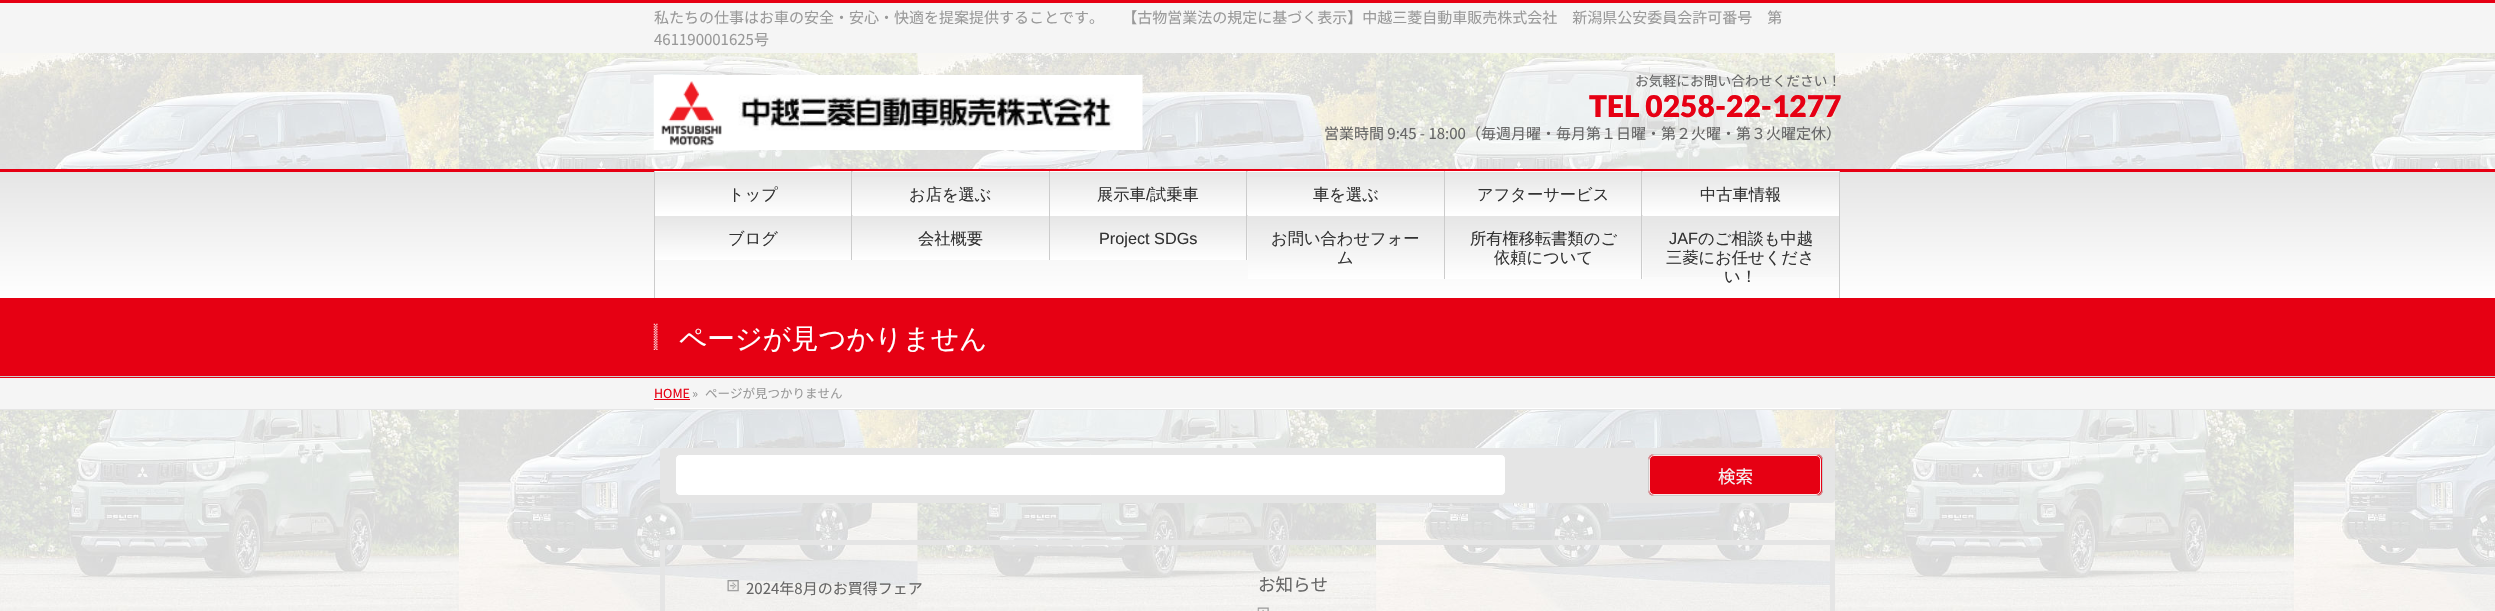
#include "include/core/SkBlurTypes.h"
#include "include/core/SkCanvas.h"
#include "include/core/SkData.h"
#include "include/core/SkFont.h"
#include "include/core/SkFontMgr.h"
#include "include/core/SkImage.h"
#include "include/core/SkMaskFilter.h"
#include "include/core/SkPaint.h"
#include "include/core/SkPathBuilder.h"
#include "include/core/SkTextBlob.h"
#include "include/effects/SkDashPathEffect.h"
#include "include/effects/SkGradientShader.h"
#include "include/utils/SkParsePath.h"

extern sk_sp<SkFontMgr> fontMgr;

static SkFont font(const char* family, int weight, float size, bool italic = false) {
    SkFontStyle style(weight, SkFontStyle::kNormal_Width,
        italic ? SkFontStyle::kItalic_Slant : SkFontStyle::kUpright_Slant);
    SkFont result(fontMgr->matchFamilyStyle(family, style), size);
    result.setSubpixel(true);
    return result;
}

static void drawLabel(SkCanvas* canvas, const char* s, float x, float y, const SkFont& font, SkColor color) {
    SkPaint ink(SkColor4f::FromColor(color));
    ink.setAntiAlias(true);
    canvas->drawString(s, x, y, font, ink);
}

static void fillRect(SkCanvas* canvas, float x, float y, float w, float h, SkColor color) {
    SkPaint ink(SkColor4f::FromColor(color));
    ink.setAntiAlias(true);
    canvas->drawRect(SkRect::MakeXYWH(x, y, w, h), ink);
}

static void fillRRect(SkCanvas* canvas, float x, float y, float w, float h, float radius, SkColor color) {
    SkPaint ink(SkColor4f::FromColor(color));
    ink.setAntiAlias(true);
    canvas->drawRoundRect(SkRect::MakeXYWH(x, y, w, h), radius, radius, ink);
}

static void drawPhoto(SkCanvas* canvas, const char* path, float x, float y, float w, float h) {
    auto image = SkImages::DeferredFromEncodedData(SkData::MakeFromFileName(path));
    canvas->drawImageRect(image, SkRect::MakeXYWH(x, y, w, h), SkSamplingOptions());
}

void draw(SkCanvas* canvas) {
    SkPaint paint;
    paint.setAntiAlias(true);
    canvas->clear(0xFFFFFFFF);
    drawPhoto(canvas, "assets/img1.png", 0, 53, 2495, 558);
    fillRect(canvas, 0, 3, 2495, 50, 0xFFF5F5F5);
    fillRect(canvas, 0, 0, 2495, 3, 0xFFE60013);
    SkFont font1 = font("Noto Sans JP", 400, 15);
    drawLabel(canvas, "私たちの仕事はお車の安全・安心・快適を提案提供することです。　 【古物営業法の規定に基づく表示】中越三菱自動車販売株式会社　新潟県公安委員会許可番号　第", 654, 23, font1, 0xFF999999);
    drawLabel(canvas, "461190001625号", 654, 45, font1, 0xFF999999);
    drawPhoto(canvas, "assets/img2.png", 653, 75, 490, 75);
    SkFont font2 = font("Noto Sans JP", 400, 13.75f);
    drawLabel(canvas, "お気軽にお問い合わせください！", 1635, 86, font2, 0xFF666666);
    SkFont font3 = font("Lato", 900, 30);
    drawLabel(canvas, "TEL 0258-22-1277", 1589, 117, font3, 0xFFE60013);
    drawLabel(canvas, "営業時間 9:45 - 18:00（毎週月曜・毎月第１日曜・第２火曜・第３火曜定休）", 1324, 139, font1, 0xFF666666);
    {
        const SkColor colors[] = {0xFFE5E5E5, 0xFFFFFFFF};
        const float stops[] = {0, 1};
        const SkPoint ends[] = {{1248, 171}, {1248, 298}};
        paint.setShader(SkGradientShader::MakeLinear(ends, colors, stops, 2, SkTileMode::kClamp));
        paint.setAlpha(255);
    }
    canvas->drawRect(SkRect::MakeXYWH(0, 172, 2495, 126), paint);
    fillRect(canvas, 0, 169, 2495, 3, 0xFFE60013);
    fillRect(canvas, 654, 171, 1, 127, 0xFFCCCCCC);
    {
        const SkColor colors[] = {0xFFE5E5E5, 0xFFFFFFFF};
        const float stops[] = {0, 1};
        const SkPoint ends[] = {{655, 171}, {655, 215}};
        paint.setShader(SkGradientShader::MakeLinear(ends, colors, stops, 2, SkTileMode::kClamp));
        paint.setAlpha(255);
    }
    canvas->drawRect(SkRect::MakeXYWH(655, 171, 198, 44), paint);
    fillRect(canvas, 655, 171, 196, 1, 0xFFFFFFFF);
    fillRect(canvas, 851, 171, 1, 44, 0xFFCCCCCC);
    SkFont font4 = font("WenQuanYi Zen Hei", 500, 16.25f);
    drawLabel(canvas, "トップ", 728, 200, font4, 0xFF333333);
    {
        const SkColor colors[] = {0xFFE5E5E5, 0xFFFFFFFF};
        const float stops[] = {0, 1};
        const SkPoint ends[] = {{853, 171}, {853, 215}};
        paint.setShader(SkGradientShader::MakeLinear(ends, colors, stops, 2, SkTileMode::kClamp));
        paint.setAlpha(255);
    }
    canvas->drawRect(SkRect::MakeXYWH(853, 177, 196, 38), paint);
    fillRect(canvas, 853, 171, 196, 1, 0xFFFFFFFF);
    fillRect(canvas, 1049, 171, 1, 89, 0xFFCCCCCC);
    drawLabel(canvas, "お店を選ぶ", 909, 200, font4, 0xFF333333);
    {
        const SkColor colors[] = {0xFFE5E5E5, 0xFFFFFFFF};
        const float stops[] = {0, 1};
        const SkPoint ends[] = {{1050, 171}, {1050, 215}};
        paint.setShader(SkGradientShader::MakeLinear(ends, colors, stops, 2, SkTileMode::kClamp));
        paint.setAlpha(255);
    }
    canvas->drawRect(SkRect::MakeXYWH(1050, 171, 198, 44), paint);
    fillRect(canvas, 1050, 171, 196, 1, 0xFFFFFFFF);
    fillRect(canvas, 1246, 171, 1, 44, 0xFFCCCCCC);
    drawLabel(canvas, "展示車", 1097, 200, font4, 0xFF333333);
    SkFont font5 = font("Liberation Sans", 400, 16.25f);
    drawLabel(canvas, "/", 1146, 200, font5, 0xFF333333);
    drawLabel(canvas, "試乗車", 1150, 200, font4, 0xFF333333);
    {
        const SkColor colors[] = {0xFFE5E5E5, 0xFFFFFFFF};
        const float stops[] = {0, 1};
        const SkPoint ends[] = {{1248, 171}, {1248, 215}};
        paint.setShader(SkGradientShader::MakeLinear(ends, colors, stops, 2, SkTileMode::kClamp));
        paint.setAlpha(255);
    }
    canvas->drawRect(SkRect::MakeXYWH(1248, 177, 196, 38), paint);
    fillRect(canvas, 1248, 171, 196, 1, 0xFFFFFFFF);
    fillRect(canvas, 1444, 171, 1, 108, 0xFFCCCCCC);
    drawLabel(canvas, "車を選ぶ", 1313, 200, font4, 0xFF333333);
    {
        const SkColor colors[] = {0xFFE5E5E5, 0xFFFFFFFF};
        const float stops[] = {0, 1};
        const SkPoint ends[] = {{1445, 171}, {1445, 215}};
        paint.setShader(SkGradientShader::MakeLinear(ends, colors, stops, 2, SkTileMode::kClamp));
        paint.setAlpha(255);
    }
    canvas->drawRect(SkRect::MakeXYWH(1445, 171, 198, 44), paint);
    fillRect(canvas, 1445, 171, 196, 1, 0xFFFFFFFF);
    fillRect(canvas, 1641, 171, 1, 44, 0xFFCCCCCC);
    drawLabel(canvas, "アフターサービス", 1477, 200, font4, 0xFF333333);
    {
        const SkColor colors[] = {0xFFE5E5E5, 0xFFFFFFFF};
        const float stops[] = {0, 1};
        const SkPoint ends[] = {{1643, 171}, {1643, 215}};
        paint.setShader(SkGradientShader::MakeLinear(ends, colors, stops, 2, SkTileMode::kClamp));
        paint.setAlpha(255);
    }
    canvas->drawRect(SkRect::MakeXYWH(1643, 177, 196, 38), paint);
    fillRect(canvas, 1643, 171, 196, 1, 0xFFFFFFFF);
    fillRect(canvas, 1839, 171, 1, 127, 0xFFCCCCCC);
    drawLabel(canvas, "中古車情報", 1700, 200, font4, 0xFF333333);
    {
        const SkColor colors[] = {0xFFE5E5E5, 0xFFFFFFFF};
        const float stops[] = {0, 1};
        const SkPoint ends[] = {{655, 215}, {655, 260}};
        paint.setShader(SkGradientShader::MakeLinear(ends, colors, stops, 2, SkTileMode::kClamp));
        paint.setAlpha(255);
    }
    canvas->drawRect(SkRect::MakeXYWH(655, 215, 198, 45), paint);
    fillRect(canvas, 655, 215, 196, 1, 0xFFFFFFFF);
    fillRect(canvas, 851, 215, 1, 45, 0xFFCCCCCC);
    drawLabel(canvas, "ブログ", 728, 244, font4, 0xFF333333);
    {
        const SkColor colors[] = {0xFFE5E5E5, 0xFFFFFFFF};
        const float stops[] = {0, 1};
        const SkPoint ends[] = {{853, 215}, {853, 260}};
        paint.setShader(SkGradientShader::MakeLinear(ends, colors, stops, 2, SkTileMode::kClamp));
        paint.setAlpha(255);
    }
    canvas->drawRect(SkRect::MakeXYWH(853, 216, 196, 44), paint);
    fillRect(canvas, 853, 215, 196, 1, 0xFFFFFFFF);
    drawLabel(canvas, "会社概要", 918, 244, font4, 0xFF333333);
    {
        const SkColor colors[] = {0xFFE5E5E5, 0xFFFFFFFF};
        const float stops[] = {0, 1};
        const SkPoint ends[] = {{1050, 215}, {1050, 260}};
        paint.setShader(SkGradientShader::MakeLinear(ends, colors, stops, 2, SkTileMode::kClamp));
        paint.setAlpha(255);
    }
    canvas->drawRect(SkRect::MakeXYWH(1050, 215, 198, 45), paint);
    fillRect(canvas, 1050, 215, 196, 1, 0xFFFFFFFF);
    fillRect(canvas, 1246, 215, 1, 45, 0xFFCCCCCC);
    drawLabel(canvas, "Project SDGs", 1099, 244, font5, 0xFF333333);
    {
        const SkColor colors[] = {0xFFE5E5E5, 0xFFFFFFFF};
        const float stops[] = {0, 1};
        const SkPoint ends[] = {{1248, 215}, {1248, 279}};
        paint.setShader(SkGradientShader::MakeLinear(ends, colors, stops, 2, SkTileMode::kClamp));
        paint.setAlpha(255);
    }
    canvas->drawRect(SkRect::MakeXYWH(1248, 216, 196, 63), paint);
    fillRect(canvas, 1248, 215, 196, 1, 0xFFFFFFFF);
    drawLabel(canvas, "お問い合わせフォー", 1271, 244, font4, 0xFF333333);
    drawLabel(canvas, "ム", 1337, 263, font4, 0xFF333333);
    {
        const SkColor colors[] = {0xFFE5E5E5, 0xFFFFFFFF};
        const float stops[] = {0, 1};
        const SkPoint ends[] = {{1445, 215}, {1445, 279}};
        paint.setShader(SkGradientShader::MakeLinear(ends, colors, stops, 2, SkTileMode::kClamp));
        paint.setAlpha(255);
    }
    canvas->drawRect(SkRect::MakeXYWH(1445, 215, 198, 64), paint);
    fillRect(canvas, 1445, 215, 196, 1, 0xFFFFFFFF);
    fillRect(canvas, 1641, 215, 1, 64, 0xFFCCCCCC);
    drawLabel(canvas, "所有権移転書類のご", 1470, 244, font4, 0xFF333333);
    drawLabel(canvas, "依頼について", 1494, 263, font4, 0xFF333333);
    {
        const SkColor colors[] = {0xFFE5E5E5, 0xFFFFFFFF};
        const float stops[] = {0, 1};
        const SkPoint ends[] = {{1643, 215}, {1643, 298}};
        paint.setShader(SkGradientShader::MakeLinear(ends, colors, stops, 2, SkTileMode::kClamp));
        paint.setAlpha(255);
    }
    canvas->drawRect(SkRect::MakeXYWH(1643, 216, 196, 61), paint);
    fillRect(canvas, 1643, 215, 196, 1, 0xFFFFFFFF);
    drawLabel(canvas, "JAF", 1669, 244, font5, 0xFF333333);
    drawLabel(canvas, "のご相談も中越", 1698, 244, font4, 0xFF333333);
    drawLabel(canvas, "三菱にお任せくださ", 1666, 263, font4, 0xFF333333);
    drawLabel(canvas, "い！", 1724, 282, font4, 0xFF333333);
    fillRect(canvas, 0, 298, 2495, 80, 0xFFE60013);
    fillRect(canvas, 0, 376, 2495, 1, 0xFFCCCCCC);
    drawPhoto(canvas, "assets/img3.png", 653, 323, 5, 27);
    SkFont font6 = font("WenQuanYi Zen Hei", 500, 27.5f);
    drawLabel(canvas, "ページが見つかりません", 679, 348, font6, 0xFFFFFFFF);
    fillRect(canvas, 0, 378, 2495, 31, 0xFFF5F5F5);
    fillRect(canvas, 0, 409, 2495, 1, 0xFFE5E5E5);
    fillRect(canvas, 654, 408, 1187, 1, 0xFFFFFFFF);
    SkFont font7 = font("Noto Sans JP", 400, 12.5f);
    drawLabel(canvas, "HOME", 654, 398, font7, 0xFFE60013);
    fillRect(canvas, 654, 399, 36, 1, 0xFFE60013);
    drawLabel(canvas, "»", 692, 398, font7, 0xFF999999);
    drawLabel(canvas, "ページが見つかりません", 705, 398, font7, 0xFF999999);
    fillRRect(canvas, 660, 448, 1175, 55, 4, 0xFFE5E5E5);
    paint.setShader(nullptr);
    paint.setColor(0xFFFFFFFF);
    canvas->drawRoundRect(SkRect::MakeXYWH(675.5f, 454.5f, 830, 41), 4.5f, 4.5f, paint);
    paint.setStroke(true);
    paint.setStrokeWidth(1);
    paint.setColor(0xFFE5E5E5);
    canvas->drawRoundRect(SkRect::MakeXYWH(675.5f, 454.5f, 830, 41), 4.5f, 4.5f, paint);
    fillRRect(canvas, 1648, 454, 175, 42, 6, 0xFFE60013);
    paint.setColor(0xFFFDE6E7);
    canvas->drawRoundRect(SkRect::MakeXYWH(1649.5f, 455.5f, 171, 39), 4.5f, 4.5f, paint);
    paint.setColor(0xFFCCCCCC);
    canvas->drawRoundRect(SkRect::MakeXYWH(1648.5f, 454.5f, 174, 41), 5.5f, 5.5f, paint);
    SkFont font8 = font("Noto Sans JP", 400, 17.5f);
    drawLabel(canvas, "検索", 1718, 483, font8, 0xFFF5F5F5);
    paint.setStrokeWidth(5);
    paint.setColor(0xFFE5E5E5);
    canvas->drawRect(SkRect::MakeXYWH(662.5f, 542.5f, 1170, 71), paint);
    drawPhoto(canvas, "assets/img4.png", 727, 580, 12, 12);
    drawLabel(canvas, "2024年8月のお買得フェア", 746, 594, font1, 0xFF666666);
    drawLabel(canvas, "お知らせ", 1258, 591, font8, 0xFF666666);
    drawPhoto(canvas, "assets/img5.png", 1257, 607, 12, 4);
}
